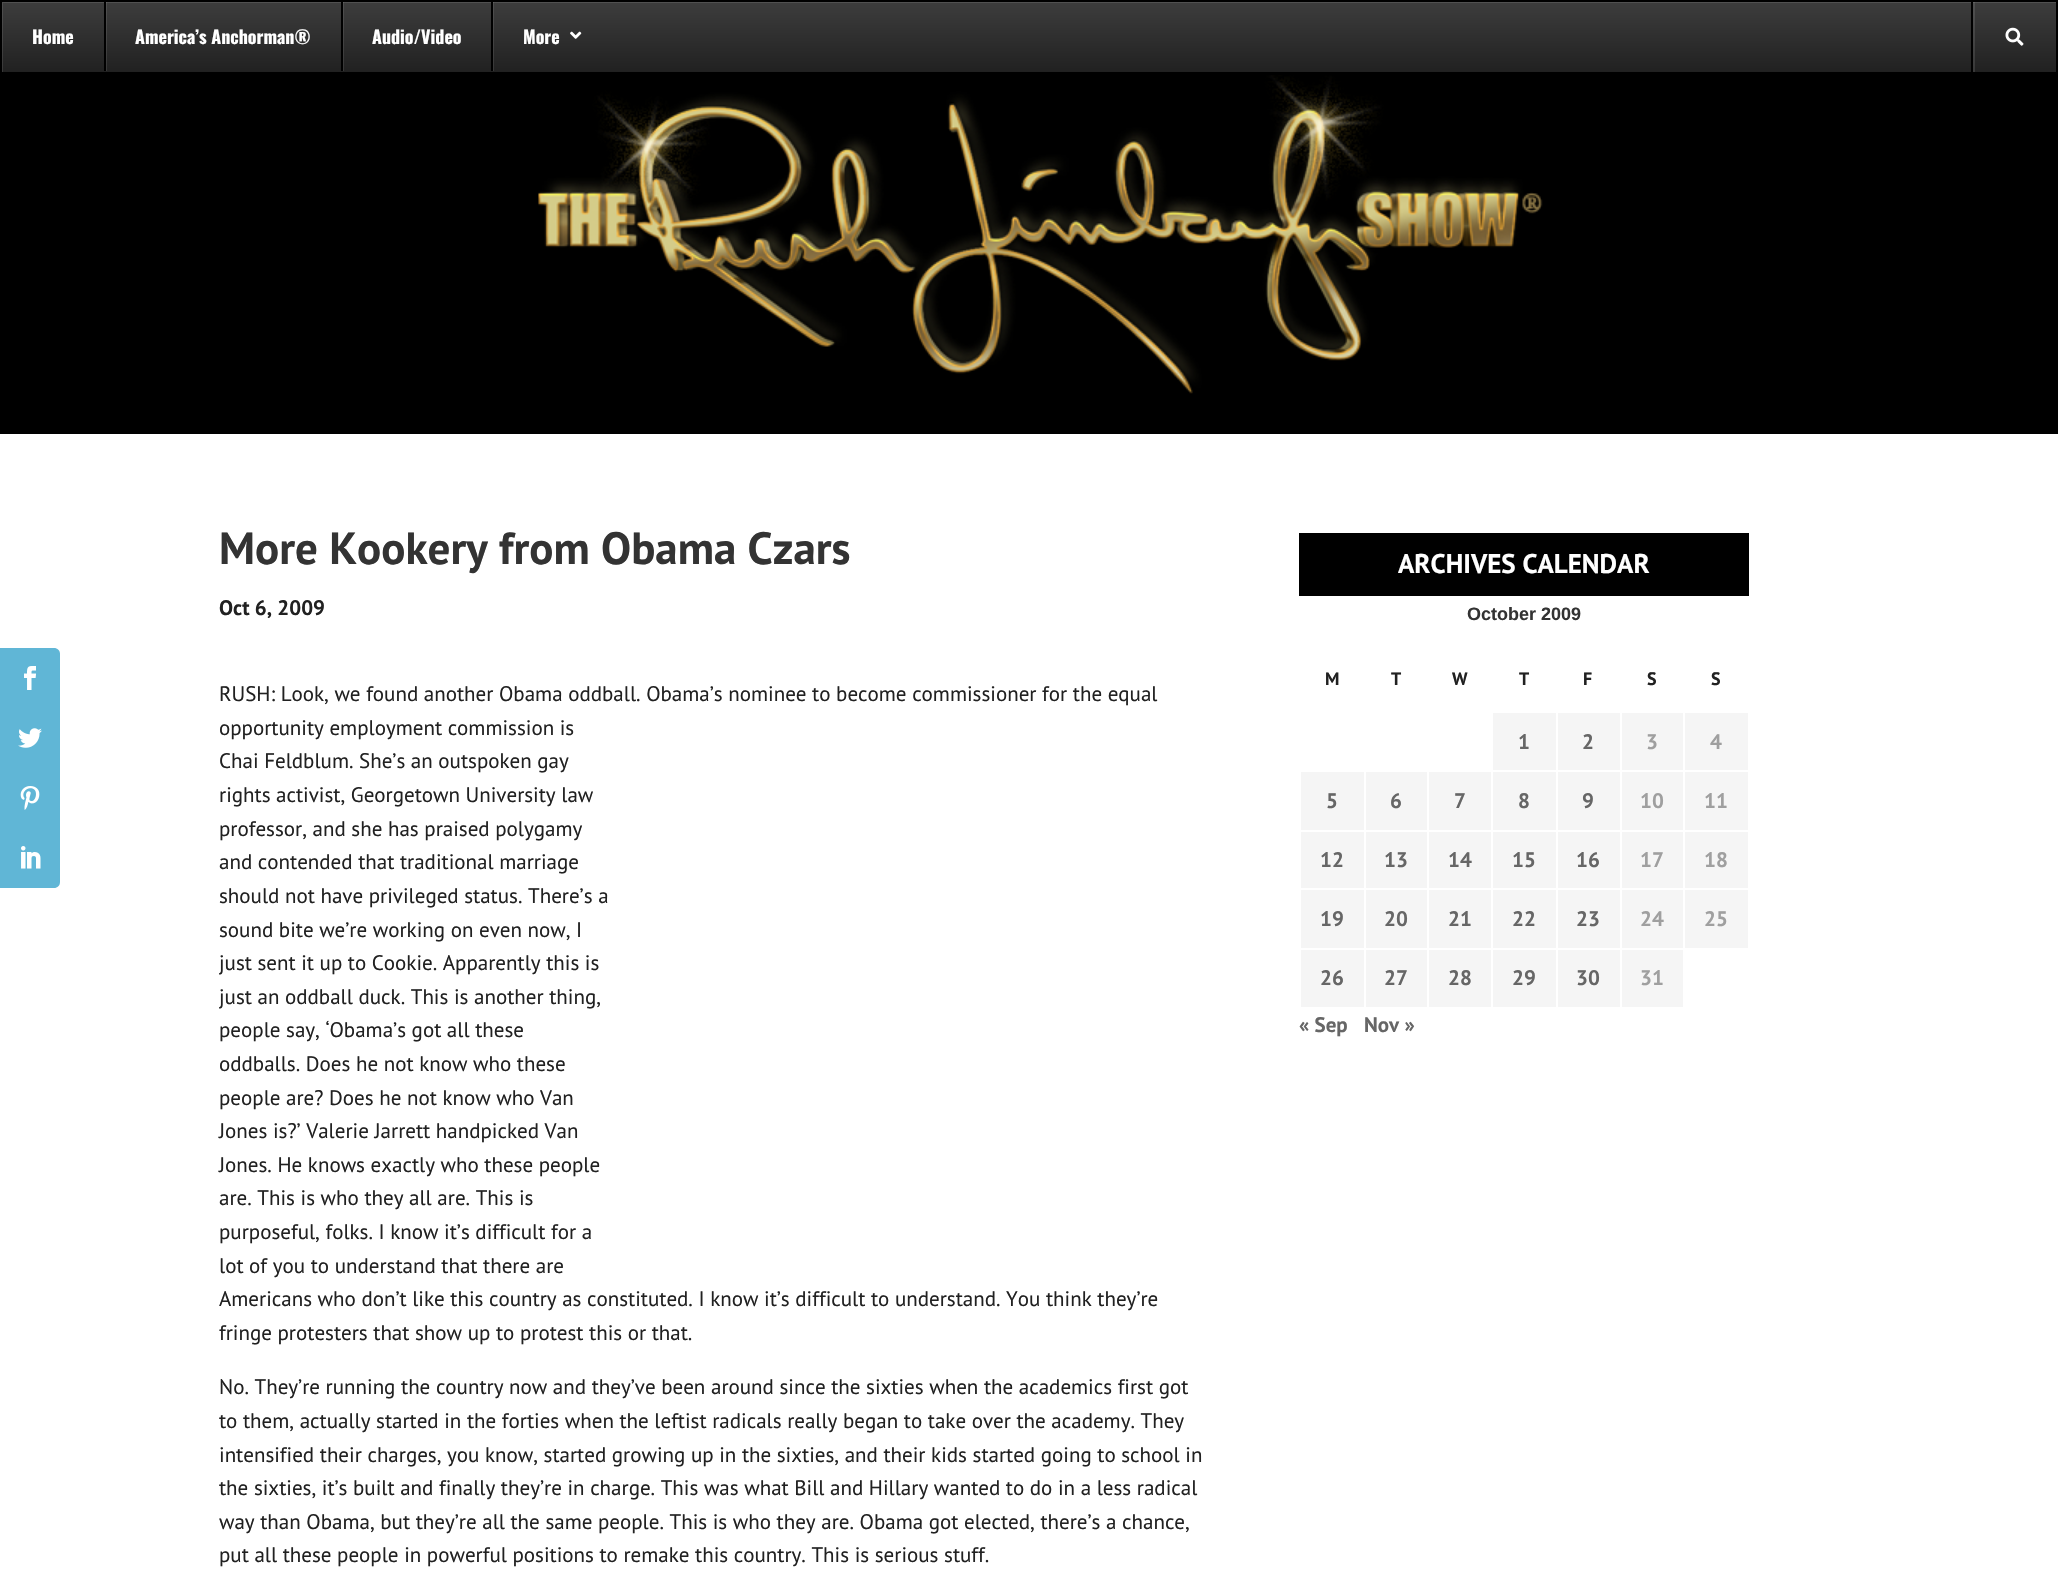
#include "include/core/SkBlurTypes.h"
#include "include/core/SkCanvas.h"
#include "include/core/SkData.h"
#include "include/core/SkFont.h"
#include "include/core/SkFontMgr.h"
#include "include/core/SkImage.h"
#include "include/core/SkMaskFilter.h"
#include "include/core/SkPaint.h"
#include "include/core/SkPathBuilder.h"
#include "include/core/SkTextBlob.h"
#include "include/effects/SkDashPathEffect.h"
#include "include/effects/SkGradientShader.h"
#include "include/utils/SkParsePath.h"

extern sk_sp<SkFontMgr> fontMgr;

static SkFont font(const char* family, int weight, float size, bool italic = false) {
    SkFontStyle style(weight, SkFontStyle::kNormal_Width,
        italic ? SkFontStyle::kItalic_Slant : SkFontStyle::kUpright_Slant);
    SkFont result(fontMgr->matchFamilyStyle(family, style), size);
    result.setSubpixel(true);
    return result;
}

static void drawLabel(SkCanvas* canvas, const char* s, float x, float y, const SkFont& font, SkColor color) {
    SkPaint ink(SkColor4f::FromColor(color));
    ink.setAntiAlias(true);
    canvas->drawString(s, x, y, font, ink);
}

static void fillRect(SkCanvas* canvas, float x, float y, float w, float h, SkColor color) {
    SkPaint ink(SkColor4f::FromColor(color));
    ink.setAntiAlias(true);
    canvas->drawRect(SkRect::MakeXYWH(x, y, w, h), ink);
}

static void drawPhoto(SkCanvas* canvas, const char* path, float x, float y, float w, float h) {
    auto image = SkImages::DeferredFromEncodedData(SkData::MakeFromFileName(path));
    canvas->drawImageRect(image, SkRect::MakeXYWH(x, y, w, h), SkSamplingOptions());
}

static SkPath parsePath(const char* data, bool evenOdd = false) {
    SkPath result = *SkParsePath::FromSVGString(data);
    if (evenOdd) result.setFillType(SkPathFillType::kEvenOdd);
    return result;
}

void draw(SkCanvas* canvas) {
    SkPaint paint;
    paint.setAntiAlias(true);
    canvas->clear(0xFFFFFFFF);
    paint.setColor(0xFF60B6D6);
    canvas->drawPath(parsePath("M0 648H54C57.5 648 60 650.5 60 654V708H0Z"), paint);
    drawPhoto(canvas, "assets/img1.png", 24, 666, 12, 24);
    fillRect(canvas, 0, 708, 60, 120, 0xFF60B6D6);
    drawPhoto(canvas, "assets/img2.png", 18, 728, 24, 20);
    drawPhoto(canvas, "assets/img3.png", 20, 786, 20, 24);
    canvas->drawPath(parsePath("M0 828H60V882C60 885.5 57.5 888 54 888H0Z"), paint);
    drawPhoto(canvas, "assets/img4.png", 21, 846, 20, 23);
    {
        const SkColor colors[] = {0xFF3D3D3D, 0xFF212121};
        const float stops[] = {0, 1};
        const SkPoint ends[] = {{1029, 1.5f}, {1029, 72}};
        paint.setShader(SkGradientShader::MakeLinear(ends, colors, stops, 2, SkTileMode::kClamp));
        paint.setAlpha(255);
    }
    canvas->drawRect(SkRect::MakeXYWH(2, 2, 2054, 70), paint);
    canvas->save();
    canvas->clipRect(SkRect::MakeXYWH(2, 2, 2055, 70));
    paint.setShader(nullptr);
    paint.setColor(0x1AFFFFFF);
    canvas->drawPath(parsePath("M-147-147H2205V220H-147ZM3 3H2058V74H3Z", true), paint);
    canvas->restore();
    paint.setStroke(true);
    paint.setStrokeWidth(2);
    paint.setColor(0xFF000000);
    canvas->drawRect(SkRect::MakeXYWH(1, 1, 2056, 72), paint);
    SkFont font1 = font("Oswald", 700, 18);
    drawLabel(canvas, "Home", 32, 44, font1, 0xFFFFFFFF);
    fillRect(canvas, 106, 2, 1, 69, 0x1AFFFFFF);
    fillRect(canvas, 104, 2, 2, 69, 0xFF000000);
    drawLabel(canvas, "America’s Anchorman®", 135, 44, font1, 0xFFFFFFFF);
    fillRect(canvas, 343, 2, 1, 69, 0x1AFFFFFF);
    fillRect(canvas, 341, 2, 2, 69, 0xFF000000);
    drawLabel(canvas, "Audio/Video", 372, 44, font1, 0xFFFFFFFF);
    fillRect(canvas, 493, 2, 1, 69, 0x1AFFFFFF);
    fillRect(canvas, 491, 2, 2, 69, 0xFF000000);
    drawLabel(canvas, "More", 523, 44, font1, 0xFFFFFFFF);
    drawPhoto(canvas, "assets/img5.png", 570, 31, 12, 8);
    fillRect(canvas, 1973, 2, 2, 70, 0x1AFFFFFF);
    fillRect(canvas, 1971, 2, 2, 70, 0xFF000000);
    drawPhoto(canvas, "assets/img6.png", 2005, 27, 19, 19);
    fillRect(canvas, 0, 74, 2058, 360, 0xFF000000);
    drawPhoto(canvas, "assets/img7.png", 538, 75, 1005, 319);
    SkFont font2 = font("PT Sans", 700, 45);
    drawLabel(canvas, "More Kookery from Obama Czars", 219, 564, font2, 0xFF333333);
    SkFont font3 = font("PT Sans", 700, 21);
    drawLabel(canvas, "Oct 6, 2009", 219, 615, font3, 0xFF212121);
    SkFont font4 = font("PT Sans", 400, 21);
    drawLabel(canvas, "RUSH: Look, we found another Obama oddball. Obama’s nominee to become commissioner for the equal", 219, 701, font4, 0xFF212121);
    drawLabel(canvas, "opportunity employment commission is", 219, 735, font4, 0xFF212121);
    drawLabel(canvas, "Chai Feldblum. She’s an outspoken gay", 219, 768, font4, 0xFF212121);
    drawLabel(canvas, "rights activist, Georgetown University law", 219, 802, font4, 0xFF212121);
    drawLabel(canvas, "professor, and she has praised polygamy", 219, 836, font4, 0xFF212121);
    drawLabel(canvas, "and contended that traditional marriage", 219, 869, font4, 0xFF212121);
    drawLabel(canvas, "should not have privileged status. There’s a", 219, 903, font4, 0xFF212121);
    drawLabel(canvas, "sound bite we’re working on even now, I", 219, 937, font4, 0xFF212121);
    drawLabel(canvas, "just sent it up to Cookie. Apparently this is", 219, 970, font4, 0xFF212121);
    drawLabel(canvas, "just an oddball duck. This is another thing,", 219, 1004, font4, 0xFF212121);
    drawLabel(canvas, "people say, ‘Obama’s got all these", 219, 1037, font4, 0xFF212121);
    drawLabel(canvas, "oddballs. Does he not know who these", 219, 1071, font4, 0xFF212121);
    drawLabel(canvas, "people are? Does he not know who Van", 219, 1105, font4, 0xFF212121);
    drawLabel(canvas, "Jones is?’ Valerie Jarrett handpicked Van", 219, 1138, font4, 0xFF212121);
    drawLabel(canvas, "Jones. He knows exactly who these people", 219, 1172, font4, 0xFF212121);
    drawLabel(canvas, "are. This is who they all are. This is", 219, 1205, font4, 0xFF212121);
    drawLabel(canvas, "purposeful, folks. I know it’s difficult for a", 219, 1239, font4, 0xFF212121);
    drawLabel(canvas, "lot of you to understand that there are", 219, 1273, font4, 0xFF212121);
    drawLabel(canvas, "Americans who don’t like this country as constituted. I know it’s difficult to understand. You think they’re", 219, 1306, font4, 0xFF212121);
    drawLabel(canvas, "fringe protesters that show up to protest this or that.", 219, 1340, font4, 0xFF212121);
    drawLabel(canvas, "No. They’re running the country now and they’ve been around since the sixties when the academics first got", 219, 1394, font4, 0xFF212121);
    drawLabel(canvas, "to them, actually started in the forties when the leftist radicals really began to take over the academy. They", 219, 1428, font4, 0xFF212121);
    drawLabel(canvas, "intensified their charges, you know, started growing up in the sixties, and their kids started going to school in", 219, 1462, font4, 0xFF212121);
    drawLabel(canvas, "the sixties, it’s built and finally they’re in charge. This was what Bill and Hillary wanted to do in a less radical", 219, 1495, font4, 0xFF212121);
    drawLabel(canvas, "way than Obama, but they’re all the same people. This is who they are. Obama got elected, there’s a chance,", 219, 1529, font4, 0xFF212121);
    drawLabel(canvas, "put all these people in powerful positions to remake this country. This is serious stuff.", 219, 1562, font4, 0xFF212121);
    fillRect(canvas, 1299, 533, 450, 63, 0xFF000000);
    SkFont font5 = font("PT Sans", 700, 27);
    drawLabel(canvas, "ARCHIVES CALENDAR", 1398, 573, font5, 0xFFFFFFFF);
    SkFont font6 = font("Liberation Sans", 700, 18);
    drawLabel(canvas, "October 2009", 1467, 620, font6, 0xFF333333);
    SkFont font7 = font("PT Sans", 700, 18);
    drawLabel(canvas, "M", 1325, 685, font7, 0xFF212121);
    drawLabel(canvas, "T", 1391, 685, font7, 0xFF212121);
    drawLabel(canvas, "W", 1452, 685, font7, 0xFF212121);
    drawLabel(canvas, "T", 1519, 685, font7, 0xFF212121);
    drawLabel(canvas, "F", 1583, 685, font7, 0xFF212121);
    drawLabel(canvas, "S", 1647, 685, font7, 0xFF212121);
    drawLabel(canvas, "S", 1711, 685, font7, 0xFF212121);
    fillRect(canvas, 1493, 713, 63, 57, 0xFFF5F5F5);
    drawLabel(canvas, "1", 1518, 749, font3, 0xFF666666);
    fillRect(canvas, 1558, 713, 62, 57, 0xFFF5F5F5);
    drawLabel(canvas, "2", 1582, 749, font3, 0xFF666666);
    fillRect(canvas, 1622, 713, 61, 57, 0xFFF5F5F5);
    drawLabel(canvas, "3", 1646, 749, font3, 0xFF9F9F9F);
    fillRect(canvas, 1685, 713, 63, 57, 0xFFF5F5F5);
    drawLabel(canvas, "4", 1710, 749, font3, 0xFF9F9F9F);
    fillRect(canvas, 1301, 772, 63, 58, 0xFFF5F5F5);
    drawLabel(canvas, "5", 1326, 808, font3, 0xFF666666);
    fillRect(canvas, 1366, 772, 61, 58, 0xFFF5F5F5);
    drawLabel(canvas, "6", 1390, 808, font3, 0xFF666666);
    fillRect(canvas, 1429, 772, 62, 58, 0xFFF5F5F5);
    drawLabel(canvas, "7", 1454, 808, font3, 0xFF666666);
    fillRect(canvas, 1493, 772, 63, 58, 0xFFF5F5F5);
    drawLabel(canvas, "8", 1518, 808, font3, 0xFF666666);
    fillRect(canvas, 1558, 772, 62, 58, 0xFFF5F5F5);
    drawLabel(canvas, "9", 1582, 808, font3, 0xFF666666);
    fillRect(canvas, 1622, 772, 61, 58, 0xFFF5F5F5);
    drawLabel(canvas, "10", 1640, 808, font3, 0xFF9F9F9F);
    fillRect(canvas, 1685, 772, 63, 58, 0xFFF5F5F5);
    drawLabel(canvas, "11", 1704, 808, font3, 0xFF9F9F9F);
    fillRect(canvas, 1301, 832, 63, 56, 0xFFF5F5F5);
    drawLabel(canvas, "12", 1320, 867, font3, 0xFF666666);
    fillRect(canvas, 1366, 832, 61, 56, 0xFFF5F5F5);
    drawLabel(canvas, "13", 1384, 867, font3, 0xFF666666);
    fillRect(canvas, 1429, 832, 62, 56, 0xFFF5F5F5);
    drawLabel(canvas, "14", 1448, 867, font3, 0xFF666666);
    fillRect(canvas, 1493, 832, 63, 56, 0xFFF5F5F5);
    drawLabel(canvas, "15", 1512, 867, font3, 0xFF666666);
    fillRect(canvas, 1558, 832, 62, 56, 0xFFF5F5F5);
    drawLabel(canvas, "16", 1576, 867, font3, 0xFF666666);
    fillRect(canvas, 1622, 832, 61, 56, 0xFFF5F5F5);
    drawLabel(canvas, "17", 1640, 867, font3, 0xFF9F9F9F);
    fillRect(canvas, 1685, 832, 63, 56, 0xFFF5F5F5);
    drawLabel(canvas, "18", 1704, 867, font3, 0xFF9F9F9F);
    fillRect(canvas, 1301, 890, 63, 58, 0xFFF5F5F5);
    drawLabel(canvas, "19", 1320, 926, font3, 0xFF666666);
    fillRect(canvas, 1366, 890, 61, 58, 0xFFF5F5F5);
    drawLabel(canvas, "20", 1384, 926, font3, 0xFF666666);
    fillRect(canvas, 1429, 890, 62, 58, 0xFFF5F5F5);
    drawLabel(canvas, "21", 1448, 926, font3, 0xFF666666);
    fillRect(canvas, 1493, 890, 63, 58, 0xFFF5F5F5);
    drawLabel(canvas, "22", 1512, 926, font3, 0xFF666666);
    fillRect(canvas, 1558, 890, 62, 58, 0xFFF5F5F5);
    drawLabel(canvas, "23", 1576, 926, font3, 0xFF666666);
    fillRect(canvas, 1622, 890, 61, 58, 0xFFF5F5F5);
    drawLabel(canvas, "24", 1640, 926, font3, 0xFF9F9F9F);
    fillRect(canvas, 1685, 890, 63, 58, 0xFFF5F5F5);
    drawLabel(canvas, "25", 1704, 926, font3, 0xFF9F9F9F);
    fillRect(canvas, 1301, 950, 63, 57, 0xFFF5F5F5);
    drawLabel(canvas, "26", 1320, 985, font3, 0xFF666666);
    fillRect(canvas, 1366, 950, 61, 57, 0xFFF5F5F5);
    drawLabel(canvas, "27", 1384, 985, font3, 0xFF666666);
    fillRect(canvas, 1429, 950, 62, 57, 0xFFF5F5F5);
    drawLabel(canvas, "28", 1448, 985, font3, 0xFF666666);
    fillRect(canvas, 1493, 950, 63, 57, 0xFFF5F5F5);
    drawLabel(canvas, "29", 1512, 985, font3, 0xFF666666);
    fillRect(canvas, 1558, 950, 62, 57, 0xFFF5F5F5);
    drawLabel(canvas, "30", 1576, 985, font3, 0xFF666666);
    fillRect(canvas, 1622, 950, 61, 57, 0xFFF5F5F5);
    drawLabel(canvas, "31", 1640, 985, font3, 0xFF9F9F9F);
    drawLabel(canvas, "« Sep", 1299, 1032, font3, 0xFF666666);
    drawLabel(canvas, "Nov »", 1364, 1032, font3, 0xFF666666);
}
